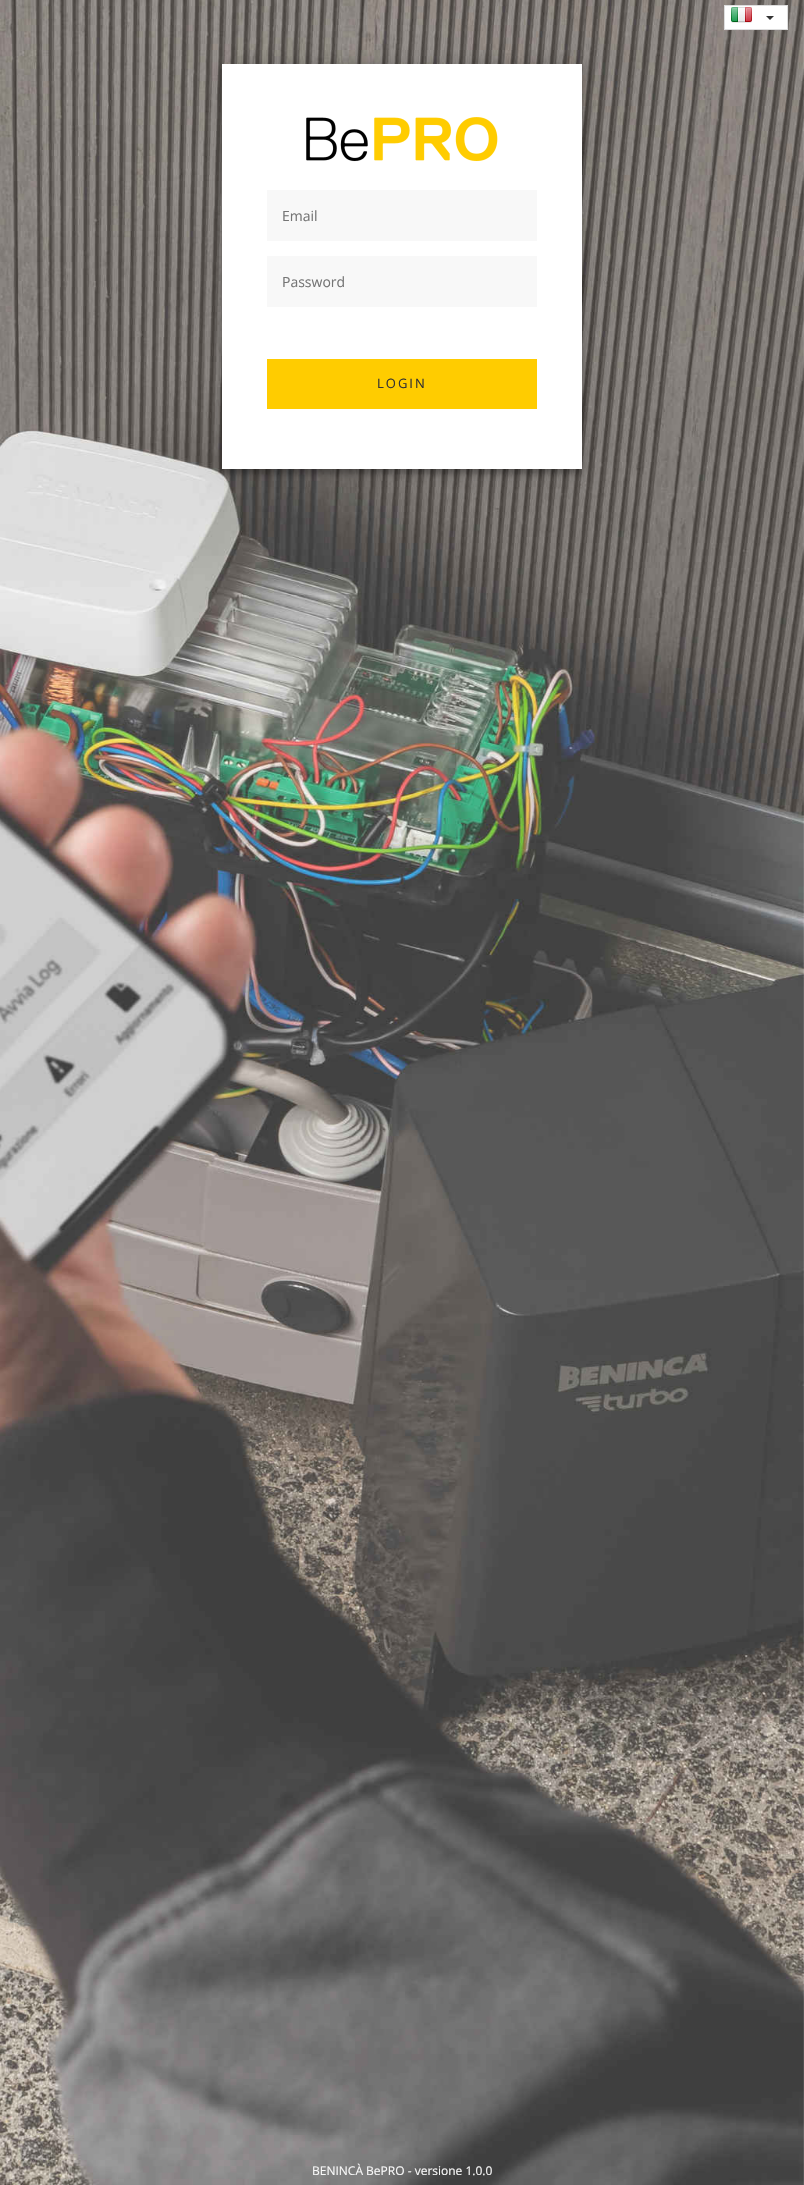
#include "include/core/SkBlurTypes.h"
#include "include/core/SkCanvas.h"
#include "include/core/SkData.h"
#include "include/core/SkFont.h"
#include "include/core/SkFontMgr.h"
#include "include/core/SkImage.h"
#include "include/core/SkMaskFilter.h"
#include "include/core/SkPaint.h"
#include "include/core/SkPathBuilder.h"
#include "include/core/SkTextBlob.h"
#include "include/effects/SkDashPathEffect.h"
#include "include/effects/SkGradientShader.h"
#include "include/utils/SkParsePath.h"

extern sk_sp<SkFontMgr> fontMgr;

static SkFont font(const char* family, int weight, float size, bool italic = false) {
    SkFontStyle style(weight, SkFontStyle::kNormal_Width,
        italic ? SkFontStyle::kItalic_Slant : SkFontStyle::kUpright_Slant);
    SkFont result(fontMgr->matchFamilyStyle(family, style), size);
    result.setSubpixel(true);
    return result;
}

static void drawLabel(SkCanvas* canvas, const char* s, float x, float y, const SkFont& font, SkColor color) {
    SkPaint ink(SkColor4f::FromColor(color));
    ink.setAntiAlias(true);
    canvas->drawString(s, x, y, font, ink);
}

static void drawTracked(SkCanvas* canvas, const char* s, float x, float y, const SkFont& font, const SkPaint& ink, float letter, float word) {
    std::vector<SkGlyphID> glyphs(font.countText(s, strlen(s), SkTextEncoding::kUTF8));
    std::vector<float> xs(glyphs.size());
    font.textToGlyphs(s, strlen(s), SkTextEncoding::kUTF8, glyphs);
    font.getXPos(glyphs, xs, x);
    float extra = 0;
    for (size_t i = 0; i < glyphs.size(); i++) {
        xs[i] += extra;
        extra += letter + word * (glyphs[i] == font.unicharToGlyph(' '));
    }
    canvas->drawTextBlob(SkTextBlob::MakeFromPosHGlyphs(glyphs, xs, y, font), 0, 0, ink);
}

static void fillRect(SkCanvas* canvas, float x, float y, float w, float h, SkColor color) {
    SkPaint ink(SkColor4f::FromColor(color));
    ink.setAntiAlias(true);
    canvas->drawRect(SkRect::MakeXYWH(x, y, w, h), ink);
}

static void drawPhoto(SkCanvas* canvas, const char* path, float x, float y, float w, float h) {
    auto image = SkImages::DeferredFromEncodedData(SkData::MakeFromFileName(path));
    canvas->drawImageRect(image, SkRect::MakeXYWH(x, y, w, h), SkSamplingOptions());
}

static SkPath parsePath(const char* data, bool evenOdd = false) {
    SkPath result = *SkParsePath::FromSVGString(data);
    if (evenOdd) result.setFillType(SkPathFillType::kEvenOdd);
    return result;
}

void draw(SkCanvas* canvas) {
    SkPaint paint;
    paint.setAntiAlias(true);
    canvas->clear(0xFFFFFFFF);
    drawPhoto(canvas, "assets/img1.png", 0, 0, 804, 2185);
    paint.setColor(0xFFFFFFFF);
    canvas->drawRect(SkRect::MakeXYWH(724.5f, 5.5f, 63, 24), paint);
    paint.setStroke(true);
    paint.setStrokeWidth(1);
    paint.setColor(0xFFDDDDDD);
    canvas->drawRect(SkRect::MakeXYWH(724.5f, 5.5f, 63, 24), paint);
    drawPhoto(canvas, "assets/img2.png", 731, 7, 21, 16);
    paint.setStroke(false);
    paint.setColor(0xFF333333);
    canvas->drawPath(parsePath("M770 20L766 16H774Z"), paint);
    paint.setColor(0x3D000000);
    paint.setMaskFilter(SkMaskFilter::MakeBlur(kNormal_SkBlurStyle, 2.5f));
    canvas->drawRect(SkRect::MakeXYWH(222, 69, 360, 405), paint);
    paint.setMaskFilter(nullptr);
    paint.setColor(0x33000000);
    paint.setMaskFilter(SkMaskFilter::MakeBlur(kNormal_SkBlurStyle, 10));
    canvas->drawRect(SkRect::MakeXYWH(222, 64, 360, 405), paint);
    paint.setMaskFilter(nullptr);
    fillRect(canvas, 222, 64, 360, 405, 0xFFFFFFFF);
    drawPhoto(canvas, "assets/img3.png", 306, 117, 192, 45);
    fillRect(canvas, 267, 190, 270, 51, 0xFFF8F8F8);
    SkFont font1 = font("Open Sans", 400, 14);
    drawLabel(canvas, "Email", 282, 221, font1, 0xFF757575);
    fillRect(canvas, 267, 256, 270, 51, 0xFFF8F8F8);
    drawLabel(canvas, "Password", 282, 287, font1, 0xFF757575);
    fillRect(canvas, 267, 359, 270, 50, 0xFFFFCC00);
    SkFont font2 = font("Open Sans", 400, 13);
    paint.setColor(0xFF343333);
    drawTracked(canvas, "LOGIN", 377, 388, font2, paint, 2, 0);
    SkFont font3 = font("Open Sans", 400, 12);
    drawLabel(canvas, "BENINCÀ BePRO - versione 1.0.0", 312, 2175, font3, 0xFFF8F8F8);
}
